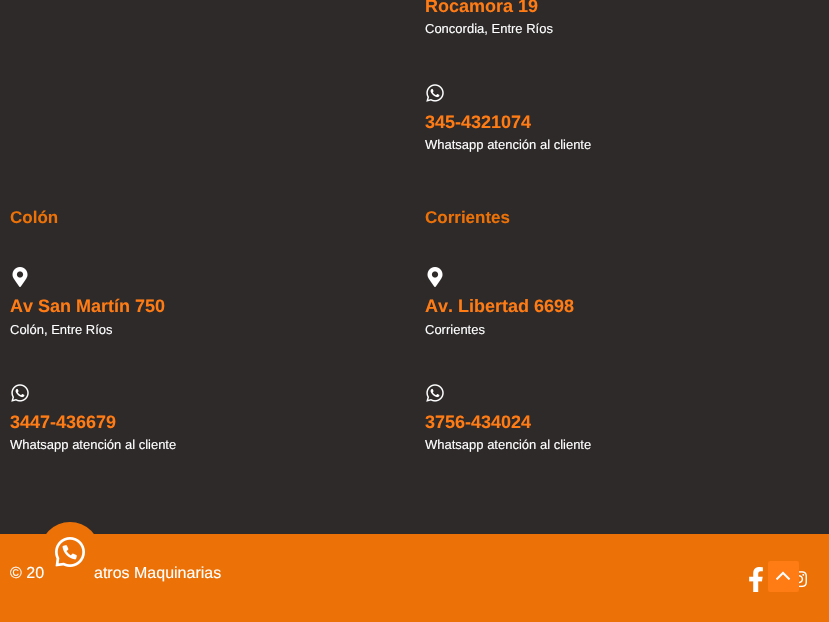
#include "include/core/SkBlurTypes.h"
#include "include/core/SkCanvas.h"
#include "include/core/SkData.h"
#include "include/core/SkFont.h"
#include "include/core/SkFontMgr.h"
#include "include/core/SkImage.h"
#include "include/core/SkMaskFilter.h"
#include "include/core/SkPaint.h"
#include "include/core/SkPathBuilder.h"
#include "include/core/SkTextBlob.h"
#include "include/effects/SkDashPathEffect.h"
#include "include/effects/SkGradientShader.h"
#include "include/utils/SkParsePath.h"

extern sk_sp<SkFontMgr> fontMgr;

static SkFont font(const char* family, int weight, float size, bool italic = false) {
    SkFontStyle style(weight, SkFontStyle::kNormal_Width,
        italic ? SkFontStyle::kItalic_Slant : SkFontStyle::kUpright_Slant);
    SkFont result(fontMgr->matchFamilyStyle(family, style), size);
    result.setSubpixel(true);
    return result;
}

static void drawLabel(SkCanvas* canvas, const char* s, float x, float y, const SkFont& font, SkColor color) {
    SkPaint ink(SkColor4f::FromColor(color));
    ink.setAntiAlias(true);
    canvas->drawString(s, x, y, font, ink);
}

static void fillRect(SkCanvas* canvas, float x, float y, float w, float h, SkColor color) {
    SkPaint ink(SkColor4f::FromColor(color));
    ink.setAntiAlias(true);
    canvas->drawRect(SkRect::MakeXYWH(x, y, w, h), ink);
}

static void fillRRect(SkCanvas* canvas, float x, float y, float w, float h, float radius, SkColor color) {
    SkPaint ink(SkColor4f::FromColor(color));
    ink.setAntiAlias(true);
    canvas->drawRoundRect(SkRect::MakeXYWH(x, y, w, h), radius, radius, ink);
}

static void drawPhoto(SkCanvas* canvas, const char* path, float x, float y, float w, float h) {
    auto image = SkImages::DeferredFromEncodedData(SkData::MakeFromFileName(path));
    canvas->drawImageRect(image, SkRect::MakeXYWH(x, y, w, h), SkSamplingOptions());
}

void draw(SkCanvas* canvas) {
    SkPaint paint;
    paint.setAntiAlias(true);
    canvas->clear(0xFF2E2A2A);
    SkFont font1 = font("Liberation Sans", 700, 18);
    drawLabel(canvas, "Rocamora 19", 425, 12, font1, 0xFFFF7B14);
    SkFont font2 = font("Liberation Sans", 400, 13);
    drawLabel(canvas, "Concordia, Entre Ríos", 425, 33, font2, 0xFFFFFFFF);
    drawPhoto(canvas, "assets/img1.png", 426, 84, 18, 18);
    drawLabel(canvas, "345-4321074", 425, 128, font1, 0xFFFF7B14);
    drawLabel(canvas, "Whatsapp atención al cliente", 425, 149, font2, 0xFFFFFFFF);
    SkFont font3 = font("Liberation Sans", 700, 17);
    drawLabel(canvas, "Colón", 10, 223, font3, 0xFFEC7106);
    drawPhoto(canvas, "assets/img2.png", 12, 267, 16, 20);
    drawLabel(canvas, "Av San Martín 750", 10, 312, font1, 0xFFFF7B14);
    drawLabel(canvas, "Colón, Entre Ríos", 10, 334, font2, 0xFFFFFFFF);
    drawPhoto(canvas, "assets/img1.png", 11, 384, 18, 18);
    drawLabel(canvas, "3447-436679", 10, 428, font1, 0xFFFF7B14);
    drawLabel(canvas, "Whatsapp atención al cliente", 10, 449, font2, 0xFFFFFFFF);
    drawLabel(canvas, "Corrientes", 425, 223, font3, 0xFFEC7106);
    drawPhoto(canvas, "assets/img2.png", 427, 267, 16, 20);
    drawLabel(canvas, "Av. Libertad 6698", 425, 312, font1, 0xFFFF7B14);
    drawLabel(canvas, "Corrientes", 425, 334, font2, 0xFFFFFFFF);
    drawPhoto(canvas, "assets/img1.png", 426, 384, 18, 18);
    drawLabel(canvas, "3756-434024", 425, 428, font1, 0xFFFF7B14);
    drawLabel(canvas, "Whatsapp atención al cliente", 425, 449, font2, 0xFFFFFFFF);
    fillRect(canvas, 0, 534, 829, 88, 0xFFEC7106);
    SkFont font4 = font("Liberation Sans", 400, 16);
    drawLabel(canvas, "© 20", 10, 578, font4, 0xFFFFFFFF);
    drawLabel(canvas, "atros Maquinarias", 94, 578, font4, 0xFFFFFFFF);
    drawPhoto(canvas, "assets/img3.png", 749, 567, 14, 25);
    drawPhoto(canvas, "assets/img4.png", 799, 571, 8, 17);
    paint.setColor(0xFFEC7106);
    canvas->drawCircle(70, 552, 30, paint);
    drawPhoto(canvas, "assets/img5.png", 55, 537, 30, 30);
    fillRRect(canvas, 768, 561, 31, 31, 2, 0xFFFF7B14);
    drawPhoto(canvas, "assets/img6.png", 776, 571, 15, 9);
}
